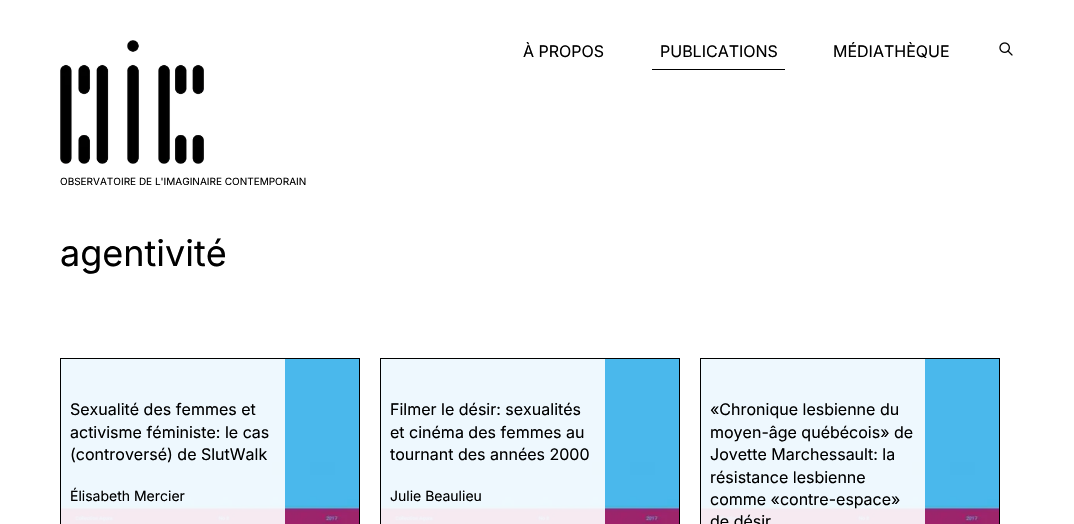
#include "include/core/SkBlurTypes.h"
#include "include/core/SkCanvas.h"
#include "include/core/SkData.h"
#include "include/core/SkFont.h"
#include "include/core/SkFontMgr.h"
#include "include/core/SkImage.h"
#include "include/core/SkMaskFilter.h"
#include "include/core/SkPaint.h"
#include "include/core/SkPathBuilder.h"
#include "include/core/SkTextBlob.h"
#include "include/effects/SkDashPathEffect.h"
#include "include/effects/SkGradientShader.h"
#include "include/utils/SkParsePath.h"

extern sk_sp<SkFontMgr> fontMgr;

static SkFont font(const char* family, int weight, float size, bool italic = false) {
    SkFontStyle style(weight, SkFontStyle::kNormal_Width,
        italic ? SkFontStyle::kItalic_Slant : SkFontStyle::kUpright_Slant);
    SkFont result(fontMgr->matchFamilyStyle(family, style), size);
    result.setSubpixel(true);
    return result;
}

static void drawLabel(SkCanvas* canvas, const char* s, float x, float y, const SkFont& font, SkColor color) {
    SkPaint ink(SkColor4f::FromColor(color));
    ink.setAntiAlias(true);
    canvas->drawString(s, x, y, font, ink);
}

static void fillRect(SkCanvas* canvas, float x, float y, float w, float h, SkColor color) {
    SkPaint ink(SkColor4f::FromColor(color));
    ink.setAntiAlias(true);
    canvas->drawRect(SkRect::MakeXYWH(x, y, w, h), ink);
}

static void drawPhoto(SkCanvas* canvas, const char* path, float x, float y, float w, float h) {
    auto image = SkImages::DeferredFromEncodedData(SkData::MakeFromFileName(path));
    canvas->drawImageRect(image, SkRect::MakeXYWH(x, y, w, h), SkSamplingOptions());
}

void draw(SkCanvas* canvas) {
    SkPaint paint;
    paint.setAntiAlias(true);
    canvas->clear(0xFFFFFFFF);
    SkFont font1 = font("Inter", 400, 16);
    drawLabel(canvas, "À PROPOS", 523, 57, font1, 0xFF000000);
    fillRect(canvas, 652, 69, 133, 1, 0xFF000000);
    drawLabel(canvas, "PUBLICATIONS", 660, 57, font1, 0xFF000000);
    drawLabel(canvas, "MÉDIATHÈQUE", 833, 57, font1, 0xFF000000);
    drawPhoto(canvas, "assets/img1.png", 999, 42, 14, 14);
    drawPhoto(canvas, "assets/img2.png", 60, 40, 144, 124);
    SkFont font2 = font("Inter", 400, 10);
    drawLabel(canvas, "OBSERVATOIRE DE L'IMAGINAIRE CONTEMPORAIN", 60, 185, font2, 0xFF000000);
    SkFont font3 = font("Inter", 400, 36);
    drawLabel(canvas, "agentivité", 60, 266, font3, 0xFF000000);
    drawPhoto(canvas, "assets/img3.png", 61, 359, 298, 165);
    fillRect(canvas, 61, 359, 224, 165, 0xE6FFFFFF);
    paint.setStroke(true);
    paint.setStrokeWidth(1);
    paint.setColor(0xFF000000);
    canvas->drawRect(SkRect::MakeXYWH(60.5f, 358.5f, 299, 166), paint);
    drawLabel(canvas, "Sexualité des femmes et", 70, 415, font1, 0xFF000000);
    drawLabel(canvas, "activisme féministe: le cas", 70, 438, font1, 0xFF000000);
    drawLabel(canvas, "(controversé) de SlutWalk", 70, 460, font1, 0xFF000000);
    SkFont font4 = font("Inter", 400, 14);
    drawLabel(canvas, "Élisabeth Mercier", 70, 501, font4, 0xFF000000);
    drawPhoto(canvas, "assets/img4.png", 381, 359, 298, 165);
    fillRect(canvas, 381, 359, 224, 165, 0xE6FFFFFF);
    canvas->drawRect(SkRect::MakeXYWH(380.5f, 358.5f, 299, 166), paint);
    drawLabel(canvas, "Filmer le désir: sexualités", 390, 415, font1, 0xFF000000);
    drawLabel(canvas, "et cinéma des femmes au", 390, 438, font1, 0xFF000000);
    drawLabel(canvas, "tournant des années 2000", 390, 460, font1, 0xFF000000);
    drawLabel(canvas, "Julie Beaulieu", 390, 501, font4, 0xFF000000);
    drawPhoto(canvas, "assets/img4.png", 701, 359, 298, 165);
    fillRect(canvas, 701, 359, 224, 165, 0xE6FFFFFF);
    canvas->drawRect(SkRect::MakeXYWH(700.5f, 358.5f, 299, 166), paint);
    drawLabel(canvas, "«Chronique lesbienne du", 710, 415, font1, 0xFF000000);
    drawLabel(canvas, "moyen-âge québécois» de", 710, 438, font1, 0xFF000000);
    drawLabel(canvas, "Jovette Marchessault: la", 710, 460, font1, 0xFF000000);
    drawLabel(canvas, "résistance lesbienne", 710, 483, font1, 0xFF000000);
    drawLabel(canvas, "comme «contre-espace»", 710, 505, font1, 0xFF000000);
    drawLabel(canvas, "de désir", 710, 527, font1, 0xFF000000);
}
